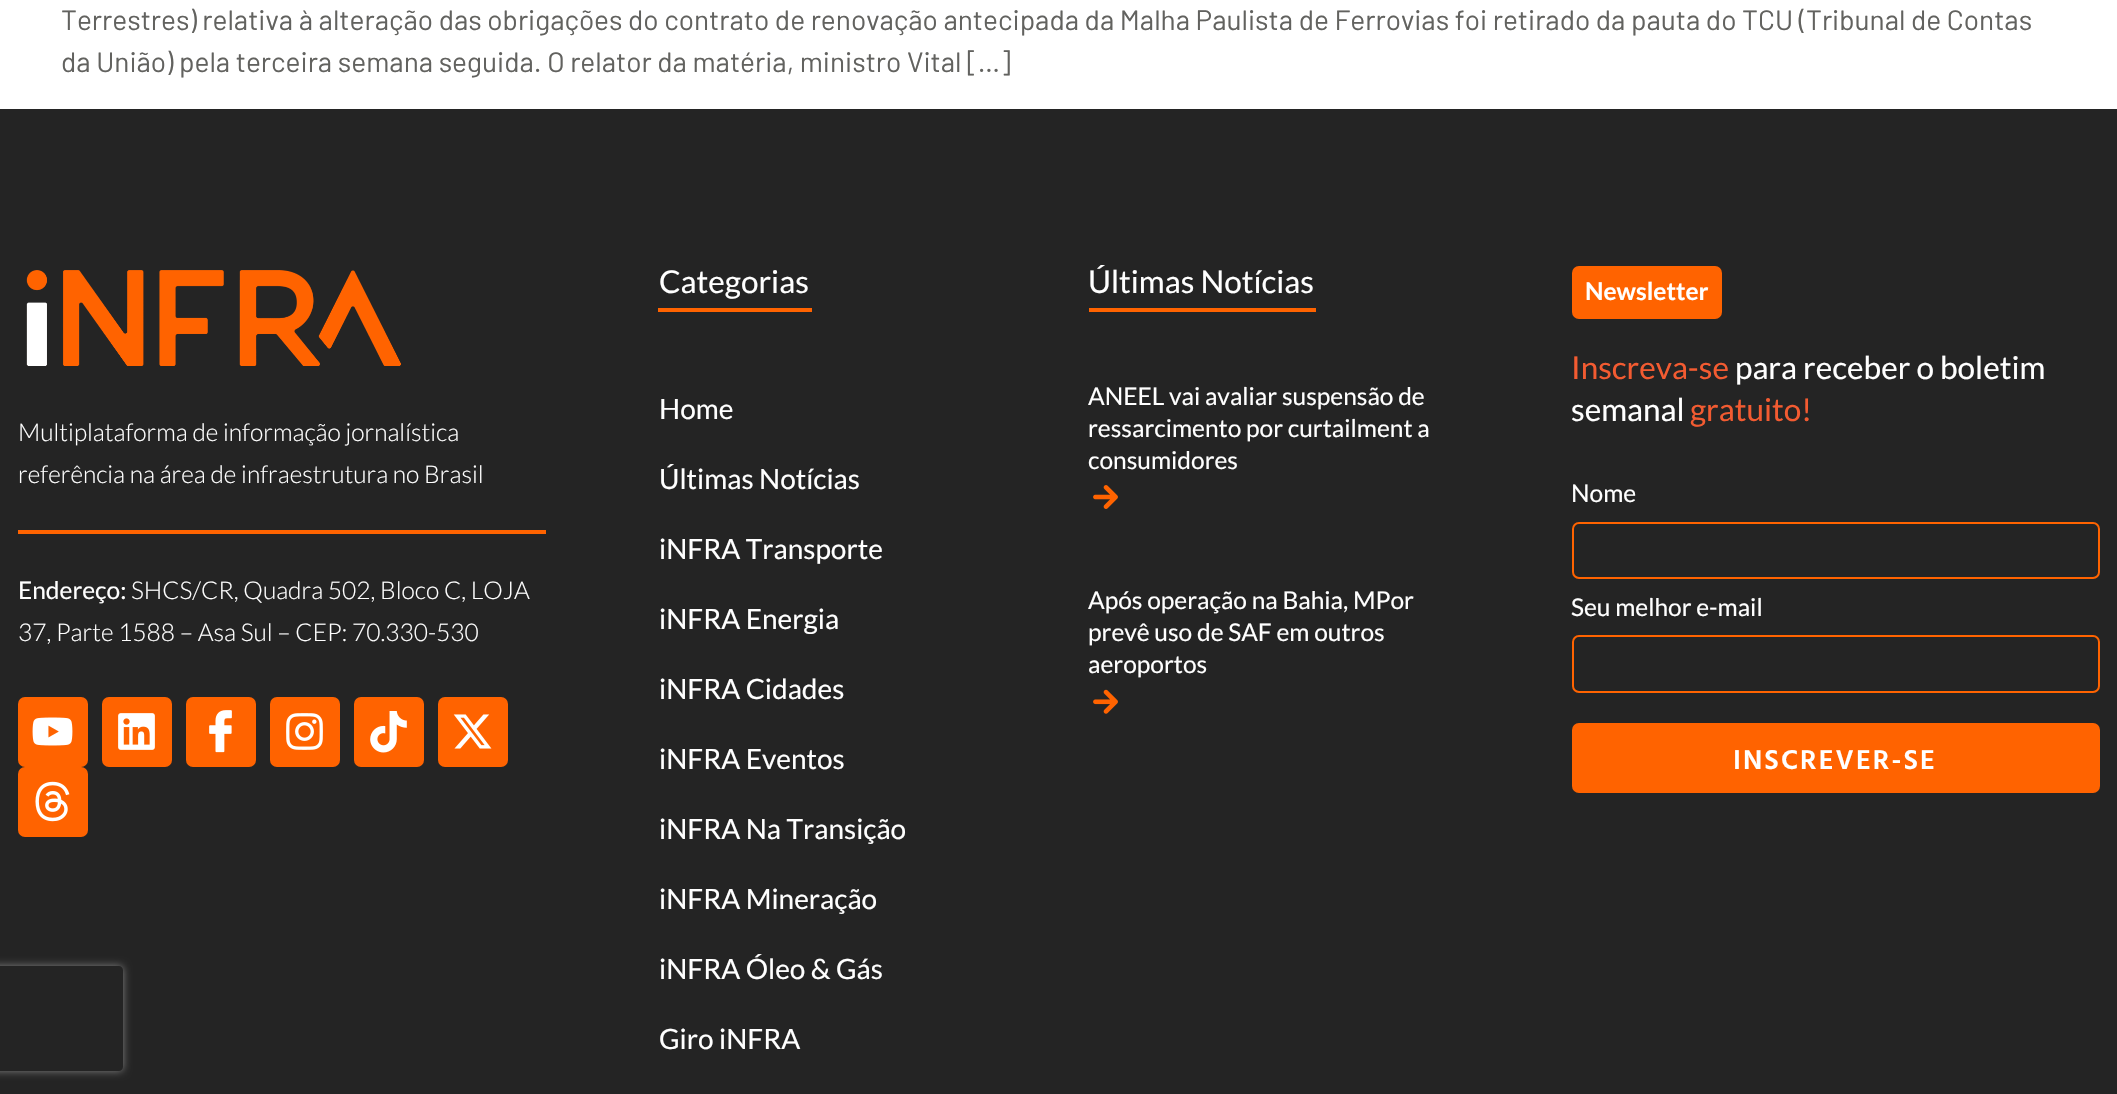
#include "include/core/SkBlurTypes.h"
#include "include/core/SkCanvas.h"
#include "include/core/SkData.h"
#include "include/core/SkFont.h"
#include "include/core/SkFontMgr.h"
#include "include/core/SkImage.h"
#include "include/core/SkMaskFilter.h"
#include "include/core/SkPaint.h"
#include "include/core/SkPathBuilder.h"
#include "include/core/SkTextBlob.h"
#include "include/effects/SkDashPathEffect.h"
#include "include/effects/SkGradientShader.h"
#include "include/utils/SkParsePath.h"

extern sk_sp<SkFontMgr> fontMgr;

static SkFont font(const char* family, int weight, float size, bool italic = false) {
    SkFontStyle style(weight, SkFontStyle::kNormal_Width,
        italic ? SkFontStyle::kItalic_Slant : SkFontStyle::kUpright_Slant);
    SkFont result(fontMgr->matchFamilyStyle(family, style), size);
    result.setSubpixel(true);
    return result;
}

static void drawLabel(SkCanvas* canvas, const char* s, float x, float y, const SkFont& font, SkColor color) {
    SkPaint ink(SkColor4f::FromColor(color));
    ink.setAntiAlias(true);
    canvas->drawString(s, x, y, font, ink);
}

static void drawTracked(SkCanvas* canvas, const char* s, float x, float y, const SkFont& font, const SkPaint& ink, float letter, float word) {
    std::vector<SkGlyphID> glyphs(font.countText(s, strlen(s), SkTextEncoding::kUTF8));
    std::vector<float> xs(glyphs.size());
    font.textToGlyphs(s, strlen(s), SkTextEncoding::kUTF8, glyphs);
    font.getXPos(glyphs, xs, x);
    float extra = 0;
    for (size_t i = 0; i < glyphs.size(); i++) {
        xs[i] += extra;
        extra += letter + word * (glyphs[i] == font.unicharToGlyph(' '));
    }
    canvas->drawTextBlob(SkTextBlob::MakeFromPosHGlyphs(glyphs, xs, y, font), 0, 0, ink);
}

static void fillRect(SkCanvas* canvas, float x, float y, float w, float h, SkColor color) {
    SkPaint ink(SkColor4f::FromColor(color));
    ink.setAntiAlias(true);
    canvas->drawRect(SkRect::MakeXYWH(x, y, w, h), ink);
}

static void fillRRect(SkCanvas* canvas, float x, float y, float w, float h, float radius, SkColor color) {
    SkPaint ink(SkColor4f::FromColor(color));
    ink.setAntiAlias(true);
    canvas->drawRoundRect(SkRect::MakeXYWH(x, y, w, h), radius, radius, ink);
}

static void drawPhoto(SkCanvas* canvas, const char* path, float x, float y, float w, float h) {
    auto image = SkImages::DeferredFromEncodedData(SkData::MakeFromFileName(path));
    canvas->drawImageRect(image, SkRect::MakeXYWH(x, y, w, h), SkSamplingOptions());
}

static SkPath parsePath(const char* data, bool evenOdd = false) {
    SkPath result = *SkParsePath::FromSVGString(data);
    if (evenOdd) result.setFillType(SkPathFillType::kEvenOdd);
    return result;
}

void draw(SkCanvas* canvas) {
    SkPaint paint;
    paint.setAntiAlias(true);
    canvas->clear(0xFFFFFFFF);
    SkFont font1 = font("Barlow", 400, 28);
    drawLabel(canvas, "Terrestres) relativa à alteração das obrigações do contrato de renovação antecipada da Malha Paulista de Ferrovias foi retirado da pauta do TCU (Tribunal de Contas", 61, 30, font1, 0xFF62625F);
    drawLabel(canvas, "da União) pela terceira semana seguida. O relator da matéria, ministro Vital […]", 61, 72, font1, 0xFF62625F);
    fillRect(canvas, 0, 109, 2117, 985, 0xFF242424);
    drawPhoto(canvas, "assets/img1.png", 26, 270, 375, 96);
    SkFont font2 = font("Lato", 300, 24.5f);
    drawLabel(canvas, "Multiplataforma de informação jornalística", 18, 441, font2, 0xFFFFFFFF);
    drawLabel(canvas, "referência na área de infraestrutura no Brasil", 18, 483, font2, 0xFFFFFFFF);
    fillRect(canvas, 18, 530, 528, 4, 0xFFFF6300);
    SkFont font3 = font("Lato", 400, 24.5f);
    drawLabel(canvas, "Endereço:", 18, 599, font3, 0xFFFFFFFF);
    drawLabel(canvas, "SHCS/CR, Quadra 502, Bloco C, LOJA", 131, 599, font2, 0xFFFFFFFF);
    drawLabel(canvas, "37, Parte 1588 – Asa Sul – CEP: 70.330-530", 18, 641, font2, 0xFFFFFFFF);
    fillRRect(canvas, 18, 697, 70, 70, 7, 0xFFFF6300);
    drawPhoto(canvas, "assets/img2.png", 32, 717, 41, 29);
    fillRRect(canvas, 102, 697, 70, 70, 7, 0xFFFF6300);
    drawPhoto(canvas, "assets/img3.png", 118, 713, 37, 37);
    fillRRect(canvas, 186, 697, 70, 70, 7, 0xFFFF6300);
    drawPhoto(canvas, "assets/img4.png", 209, 710, 23, 43);
    fillRRect(canvas, 270, 697, 70, 70, 7, 0xFFFF6300);
    drawPhoto(canvas, "assets/img5.png", 286, 713, 37, 37);
    fillRRect(canvas, 354, 697, 70, 70, 7, 0xFFFF6300);
    drawPhoto(canvas, "assets/img6.png", 370, 711, 37, 42);
    fillRRect(canvas, 438, 697, 70, 70, 7, 0xFFFF6300);
    drawPhoto(canvas, "assets/img7.png", 453, 714, 39, 35);
    fillRRect(canvas, 18, 767, 70, 70, 7, 0xFFFF6300);
    drawPhoto(canvas, "assets/img8.png", 35, 781, 35, 41);
    SkFont font4 = font("Lato", 400, 31.5f);
    drawLabel(canvas, "Categorias", 659, 293, font4, 0xFFFFFFFF);
    fillRect(canvas, 658, 308, 154, 4, 0xFFFF6300);
    SkFont font5 = font("Lato", 400, 28);
    drawLabel(canvas, "Home", 659, 419, font5, 0xFFFFFFFF);
    drawLabel(canvas, "Últimas Notícias", 659, 489, font5, 0xFFFFFFFF);
    drawLabel(canvas, "iNFRA Transporte", 659, 559, font5, 0xFFFFFFFF);
    drawLabel(canvas, "iNFRA Energia", 659, 629, font5, 0xFFFFFFFF);
    drawLabel(canvas, "iNFRA Cidades", 659, 699, font5, 0xFFFFFFFF);
    drawLabel(canvas, "iNFRA Eventos", 659, 769, font5, 0xFFFFFFFF);
    drawLabel(canvas, "iNFRA Na Transição", 659, 839, font5, 0xFFFFFFFF);
    drawLabel(canvas, "iNFRA Mineração", 659, 909, font5, 0xFFFFFFFF);
    drawLabel(canvas, "iNFRA Óleo & Gás", 659, 979, font5, 0xFFFFFFFF);
    drawLabel(canvas, "Giro iNFRA", 659, 1049, font5, 0xFFFFFFFF);
    drawLabel(canvas, "Últimas Notícias", 1088, 293, font4, 0xFFFFFFFF);
    fillRect(canvas, 1089, 308, 227, 4, 0xFFFF6300);
    drawLabel(canvas, "ANEEL vai avaliar suspensão de", 1088, 405, font3, 0xFFFFFFFF);
    drawLabel(canvas, "ressarcimento por curtailment a", 1088, 437, font3, 0xFFFFFFFF);
    drawLabel(canvas, "consumidores", 1088, 469, font3, 0xFFFFFFFF);
    drawPhoto(canvas, "assets/img9.png", 1093, 485, 25, 24);
    drawLabel(canvas, "Após operação na Bahia, MPor", 1088, 609, font3, 0xFFFFFFFF);
    drawLabel(canvas, "prevê uso de SAF em outros", 1088, 641, font3, 0xFFFFFFFF);
    drawLabel(canvas, "aeroportos", 1088, 673, font3, 0xFFFFFFFF);
    drawPhoto(canvas, "assets/img10.png", 1093, 689, 25, 25);
    fillRRect(canvas, 1572, 266, 150, 53, 7, 0xFFFF6300);
    SkFont font6 = font("Lato", 700, 24.5f);
    drawLabel(canvas, "Newsletter", 1585, 300, font6, 0xFFFFFFFF);
    drawLabel(canvas, "Inscreva-se", 1571, 379, font4, 0xFFF35B31);
    drawLabel(canvas, "para receber o boletim", 1735, 379, font4, 0xFFFFFFFF);
    drawLabel(canvas, "semanal", 1571, 421, font4, 0xFFFFFFFF);
    drawLabel(canvas, "gratuito!", 1690, 421, font4, 0xFFF35B31);
    drawLabel(canvas, "Nome", 1571, 502, font3, 0xFFFFFFFF);
    paint.setStroke(true);
    paint.setStrokeWidth(2);
    paint.setColor(0xFFFF6300);
    canvas->drawRoundRect(SkRect::MakeXYWH(1573, 523, 526, 55), 6, 6, paint);
    drawLabel(canvas, "Seu melhor e-mail", 1571, 616, font3, 0xFFFFFFFF);
    canvas->drawRoundRect(SkRect::MakeXYWH(1573, 636, 526, 56), 6, 6, paint);
    fillRRect(canvas, 1572, 723, 528, 70, 7, 0xFFFF6300);
    SkFont font7 = font("Hind Vadodara", 600, 28);
    paint.setStroke(false);
    paint.setColor(0xFFFFFFFF);
    drawTracked(canvas, "INSCREVER-SE", 1733, 769, font7, paint, 2.1f, 0);
    canvas->save();
    canvas->clipPath(parsePath("M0 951H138V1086H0ZM-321 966H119C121 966 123 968 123 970V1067C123 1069 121 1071 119 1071H-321C-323 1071-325 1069-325 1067V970C-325 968-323 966-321 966Z", true), true);
    paint.setColor(0xFF808080);
    paint.setMaskFilter(SkMaskFilter::MakeBlur(kNormal_SkBlurStyle, 4.5f));
    canvas->drawRoundRect(SkRect::MakeXYWH(-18, 966, 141, 105), 4, 4, paint);
    paint.setMaskFilter(nullptr);
    canvas->restore();
}
